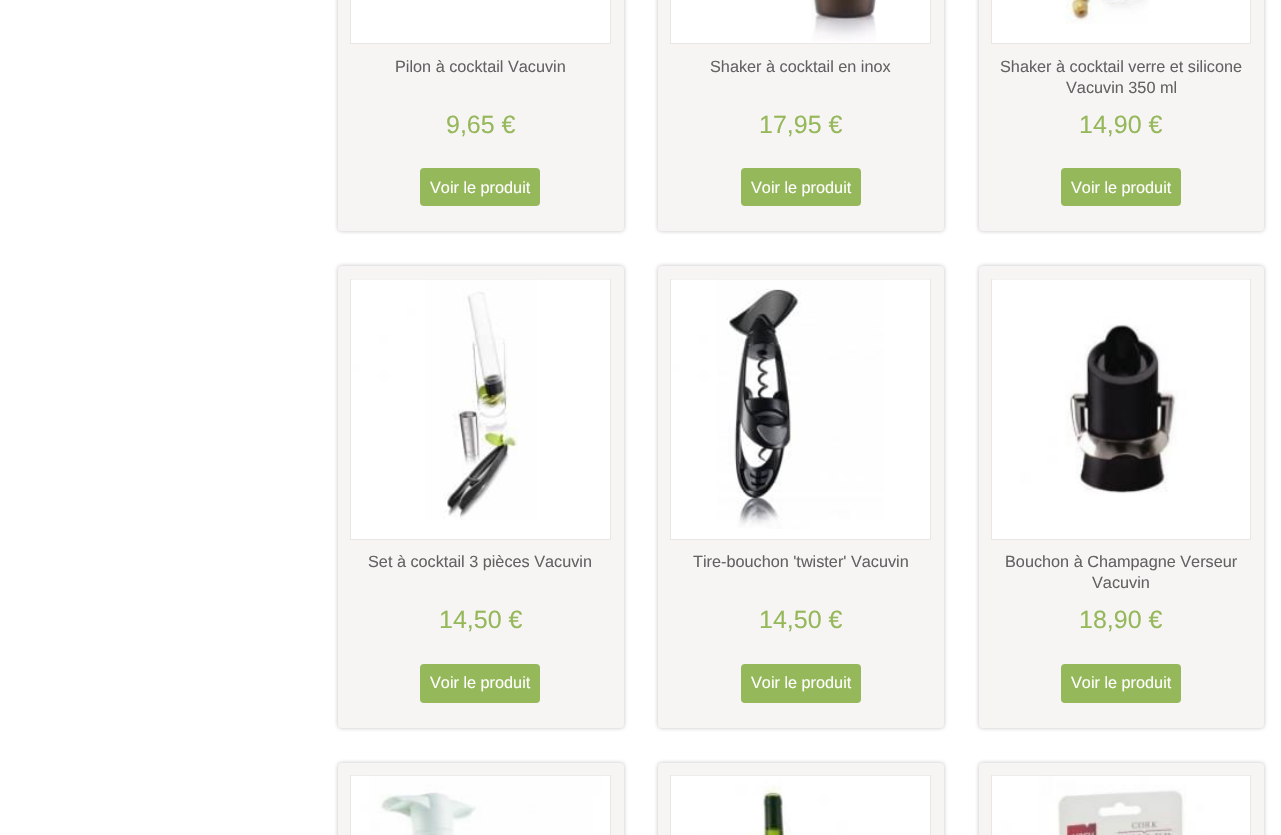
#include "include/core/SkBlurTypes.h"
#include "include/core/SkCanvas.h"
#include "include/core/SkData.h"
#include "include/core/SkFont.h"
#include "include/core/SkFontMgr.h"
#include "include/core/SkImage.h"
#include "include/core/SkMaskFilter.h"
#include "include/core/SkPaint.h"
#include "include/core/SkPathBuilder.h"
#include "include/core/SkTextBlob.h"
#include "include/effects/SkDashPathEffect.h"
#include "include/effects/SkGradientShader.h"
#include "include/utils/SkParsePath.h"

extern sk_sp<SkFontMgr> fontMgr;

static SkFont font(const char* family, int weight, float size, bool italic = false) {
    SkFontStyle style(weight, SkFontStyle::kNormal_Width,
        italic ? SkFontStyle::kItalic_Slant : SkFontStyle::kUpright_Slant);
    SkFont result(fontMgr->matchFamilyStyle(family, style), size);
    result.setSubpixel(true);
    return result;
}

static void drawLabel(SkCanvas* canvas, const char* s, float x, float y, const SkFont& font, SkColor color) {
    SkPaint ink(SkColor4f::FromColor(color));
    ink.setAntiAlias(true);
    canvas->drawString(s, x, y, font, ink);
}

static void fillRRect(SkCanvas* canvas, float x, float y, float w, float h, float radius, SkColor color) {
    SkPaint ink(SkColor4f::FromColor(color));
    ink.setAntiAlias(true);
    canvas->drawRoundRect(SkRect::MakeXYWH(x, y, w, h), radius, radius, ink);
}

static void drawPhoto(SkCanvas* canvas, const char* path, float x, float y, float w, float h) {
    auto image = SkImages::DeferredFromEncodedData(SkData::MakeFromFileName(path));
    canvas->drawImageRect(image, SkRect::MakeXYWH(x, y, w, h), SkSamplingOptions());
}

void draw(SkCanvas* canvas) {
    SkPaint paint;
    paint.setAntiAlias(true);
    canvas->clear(0xFFFFFFFF);
    paint.setColor(0x4D323232);
    paint.setMaskFilter(SkMaskFilter::MakeBlur(kNormal_SkBlurStyle, 2));
    canvas->drawRoundRect(SkRect::MakeXYWH(338, -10, 286, 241), 4, 4, paint);
    paint.setMaskFilter(nullptr);
    fillRRect(canvas, 338, -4, 286, 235, 4, 0xFFF7F5F4);
    paint.setColor(0xFFFFFFFF);
    canvas->drawRect(SkRect::MakeXYWH(350.5f, -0.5f, 260, 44), paint);
    paint.setStroke(true);
    paint.setStrokeWidth(1);
    paint.setColor(0xFFE9E6E3);
    canvas->drawRect(SkRect::MakeXYWH(350.5f, -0.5f, 260, 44), paint);
    SkFont font1 = font("Liberation Sans", 400, 16.25f);
    drawLabel(canvas, "Pilon à cocktail Vacuvin", 395, 72, font1, 0xFF626262);
    SkFont font2 = font("Liberation Sans", 400, 25);
    drawLabel(canvas, "9,65 €", 446, 133, font2, 0xFF95B85A);
    fillRRect(canvas, 420, 168, 120, 38, 4, 0xFF95B85A);
    drawLabel(canvas, "Voir le produit", 430, 193, font1, 0xFFFFFFFF);
    paint.setStroke(false);
    paint.setColor(0x4D323232);
    paint.setMaskFilter(SkMaskFilter::MakeBlur(kNormal_SkBlurStyle, 2));
    canvas->drawRoundRect(SkRect::MakeXYWH(658, -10, 286, 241), 4, 4, paint);
    paint.setMaskFilter(nullptr);
    fillRRect(canvas, 658, -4, 286, 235, 4, 0xFFF7F5F4);
    paint.setColor(0xFFFFFFFF);
    canvas->drawRect(SkRect::MakeXYWH(670.5f, -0.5f, 260, 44), paint);
    paint.setStroke(true);
    paint.setColor(0xFFE9E6E3);
    canvas->drawRect(SkRect::MakeXYWH(670.5f, -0.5f, 260, 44), paint);
    drawPhoto(canvas, "assets/img1.png", 811, 0, 66, 42);
    drawLabel(canvas, "Shaker à cocktail en inox", 710, 72, font1, 0xFF626262);
    drawLabel(canvas, "17,95 €", 759, 133, font2, 0xFF95B85A);
    fillRRect(canvas, 741, 168, 120, 38, 4, 0xFF95B85A);
    drawLabel(canvas, "Voir le produit", 751, 193, font1, 0xFFFFFFFF);
    paint.setStroke(false);
    paint.setColor(0x4D323232);
    paint.setMaskFilter(SkMaskFilter::MakeBlur(kNormal_SkBlurStyle, 2));
    canvas->drawRoundRect(SkRect::MakeXYWH(979, -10, 285, 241), 4, 4, paint);
    paint.setMaskFilter(nullptr);
    fillRRect(canvas, 979, -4, 285, 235, 4, 0xFFF7F5F4);
    paint.setColor(0xFFFFFFFF);
    canvas->drawRect(SkRect::MakeXYWH(991.5f, -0.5f, 259, 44), paint);
    paint.setStroke(true);
    paint.setColor(0xFFE9E6E3);
    canvas->drawRect(SkRect::MakeXYWH(991.5f, -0.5f, 259, 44), paint);
    drawPhoto(canvas, "assets/img2.png", 1065, 0, 84, 24);
    drawLabel(canvas, "Shaker à cocktail verre et silicone", 1000, 72, font1, 0xFF626262);
    drawLabel(canvas, "Vacuvin 350 ml", 1066, 93, font1, 0xFF626262);
    drawLabel(canvas, "14,90 €", 1079, 133, font2, 0xFF95B85A);
    fillRRect(canvas, 1061, 168, 120, 38, 4, 0xFF95B85A);
    drawLabel(canvas, "Voir le produit", 1071, 193, font1, 0xFFFFFFFF);
    paint.setStroke(false);
    paint.setColor(0x4D323232);
    paint.setMaskFilter(SkMaskFilter::MakeBlur(kNormal_SkBlurStyle, 2));
    canvas->drawRoundRect(SkRect::MakeXYWH(338, 266, 286, 462), 4, 4, paint);
    paint.setMaskFilter(nullptr);
    fillRRect(canvas, 338, 266, 286, 462, 4, 0xFFF7F5F4);
    paint.setColor(0xFFFFFFFF);
    canvas->drawRect(SkRect::MakeXYWH(350.5f, 279.5f, 260, 260), paint);
    paint.setStroke(true);
    paint.setColor(0xFFE9E6E3);
    canvas->drawRect(SkRect::MakeXYWH(350.5f, 279.5f, 260, 260), paint);
    drawPhoto(canvas, "assets/img3.png", 351, 279, 259, 241);
    drawLabel(canvas, "Set à cocktail 3 pièces Vacuvin", 368, 567, font1, 0xFF626262);
    drawLabel(canvas, "14,50 €", 439, 628, font2, 0xFF95B85A);
    fillRRect(canvas, 420, 664, 120, 39, 4, 0xFF95B85A);
    drawLabel(canvas, "Voir le produit", 430, 688, font1, 0xFFFFFFFF);
    paint.setStroke(false);
    paint.setColor(0x4D323232);
    paint.setMaskFilter(SkMaskFilter::MakeBlur(kNormal_SkBlurStyle, 2));
    canvas->drawRoundRect(SkRect::MakeXYWH(658, 266, 286, 462), 4, 4, paint);
    paint.setMaskFilter(nullptr);
    fillRRect(canvas, 658, 266, 286, 462, 4, 0xFFF7F5F4);
    paint.setColor(0xFFFFFFFF);
    canvas->drawRect(SkRect::MakeXYWH(670.5f, 279.5f, 260, 260), paint);
    paint.setStroke(true);
    paint.setColor(0xFFE9E6E3);
    canvas->drawRect(SkRect::MakeXYWH(670.5f, 279.5f, 260, 260), paint);
    drawPhoto(canvas, "assets/img4.png", 671, 279, 259, 250);
    drawLabel(canvas, "Tire-bouchon 'twister' Vacuvin", 693, 567, font1, 0xFF626262);
    drawLabel(canvas, "14,50 €", 759, 628, font2, 0xFF95B85A);
    fillRRect(canvas, 741, 664, 120, 39, 4, 0xFF95B85A);
    drawLabel(canvas, "Voir le produit", 751, 688, font1, 0xFFFFFFFF);
    paint.setStroke(false);
    paint.setColor(0x4D323232);
    paint.setMaskFilter(SkMaskFilter::MakeBlur(kNormal_SkBlurStyle, 2));
    canvas->drawRoundRect(SkRect::MakeXYWH(979, 266, 285, 462), 4, 4, paint);
    paint.setMaskFilter(nullptr);
    fillRRect(canvas, 979, 266, 285, 462, 4, 0xFFF7F5F4);
    paint.setColor(0xFFFFFFFF);
    canvas->drawRect(SkRect::MakeXYWH(991.5f, 279.5f, 259, 260), paint);
    paint.setStroke(true);
    paint.setColor(0xFFE9E6E3);
    canvas->drawRect(SkRect::MakeXYWH(991.5f, 279.5f, 259, 260), paint);
    drawPhoto(canvas, "assets/img5.png", 992, 279, 258, 215);
    drawLabel(canvas, "Bouchon à Champagne Verseur", 1005, 567, font1, 0xFF626262);
    drawLabel(canvas, "Vacuvin", 1092, 588, font1, 0xFF626262);
    drawLabel(canvas, "18,90 €", 1079, 628, font2, 0xFF95B85A);
    fillRRect(canvas, 1061, 664, 120, 39, 4, 0xFF95B85A);
    drawLabel(canvas, "Voir le produit", 1071, 688, font1, 0xFFFFFFFF);
    paint.setStroke(false);
    paint.setColor(0x4D323232);
    paint.setMaskFilter(SkMaskFilter::MakeBlur(kNormal_SkBlurStyle, 2));
    canvas->drawRoundRect(SkRect::MakeXYWH(338, 763, 286, 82), 4, 4, paint);
    paint.setMaskFilter(nullptr);
    fillRRect(canvas, 338, 763, 286, 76, 4, 0xFFF7F5F4);
    paint.setStroke(true);
    paint.setColor(0xFFE9E6E3);
    canvas->drawRect(SkRect::MakeXYWH(350.5f, 775.5f, 260, 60), paint);
    drawPhoto(canvas, "assets/img6.png", 351, 775, 259, 60);
    paint.setStroke(false);
    paint.setColor(0x4D323232);
    paint.setMaskFilter(SkMaskFilter::MakeBlur(kNormal_SkBlurStyle, 2));
    canvas->drawRoundRect(SkRect::MakeXYWH(658, 763, 286, 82), 4, 4, paint);
    paint.setMaskFilter(nullptr);
    fillRRect(canvas, 658, 763, 286, 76, 4, 0xFFF7F5F4);
    paint.setStroke(true);
    paint.setColor(0xFFE9E6E3);
    canvas->drawRect(SkRect::MakeXYWH(670.5f, 775.5f, 260, 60), paint);
    drawPhoto(canvas, "assets/img7.png", 671, 775, 259, 60);
    paint.setStroke(false);
    paint.setColor(0x4D323232);
    paint.setMaskFilter(SkMaskFilter::MakeBlur(kNormal_SkBlurStyle, 2));
    canvas->drawRoundRect(SkRect::MakeXYWH(979, 763, 285, 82), 4, 4, paint);
    paint.setMaskFilter(nullptr);
    fillRRect(canvas, 979, 763, 285, 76, 4, 0xFFF7F5F4);
    paint.setColor(0xFFFFFFFF);
    canvas->drawRect(SkRect::MakeXYWH(991.5f, 775.5f, 259, 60), paint);
    paint.setStroke(true);
    paint.setColor(0xFFE9E6E3);
    canvas->drawRect(SkRect::MakeXYWH(991.5f, 775.5f, 259, 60), paint);
    drawPhoto(canvas, "assets/img8.png", 992, 775, 258, 60);
}
